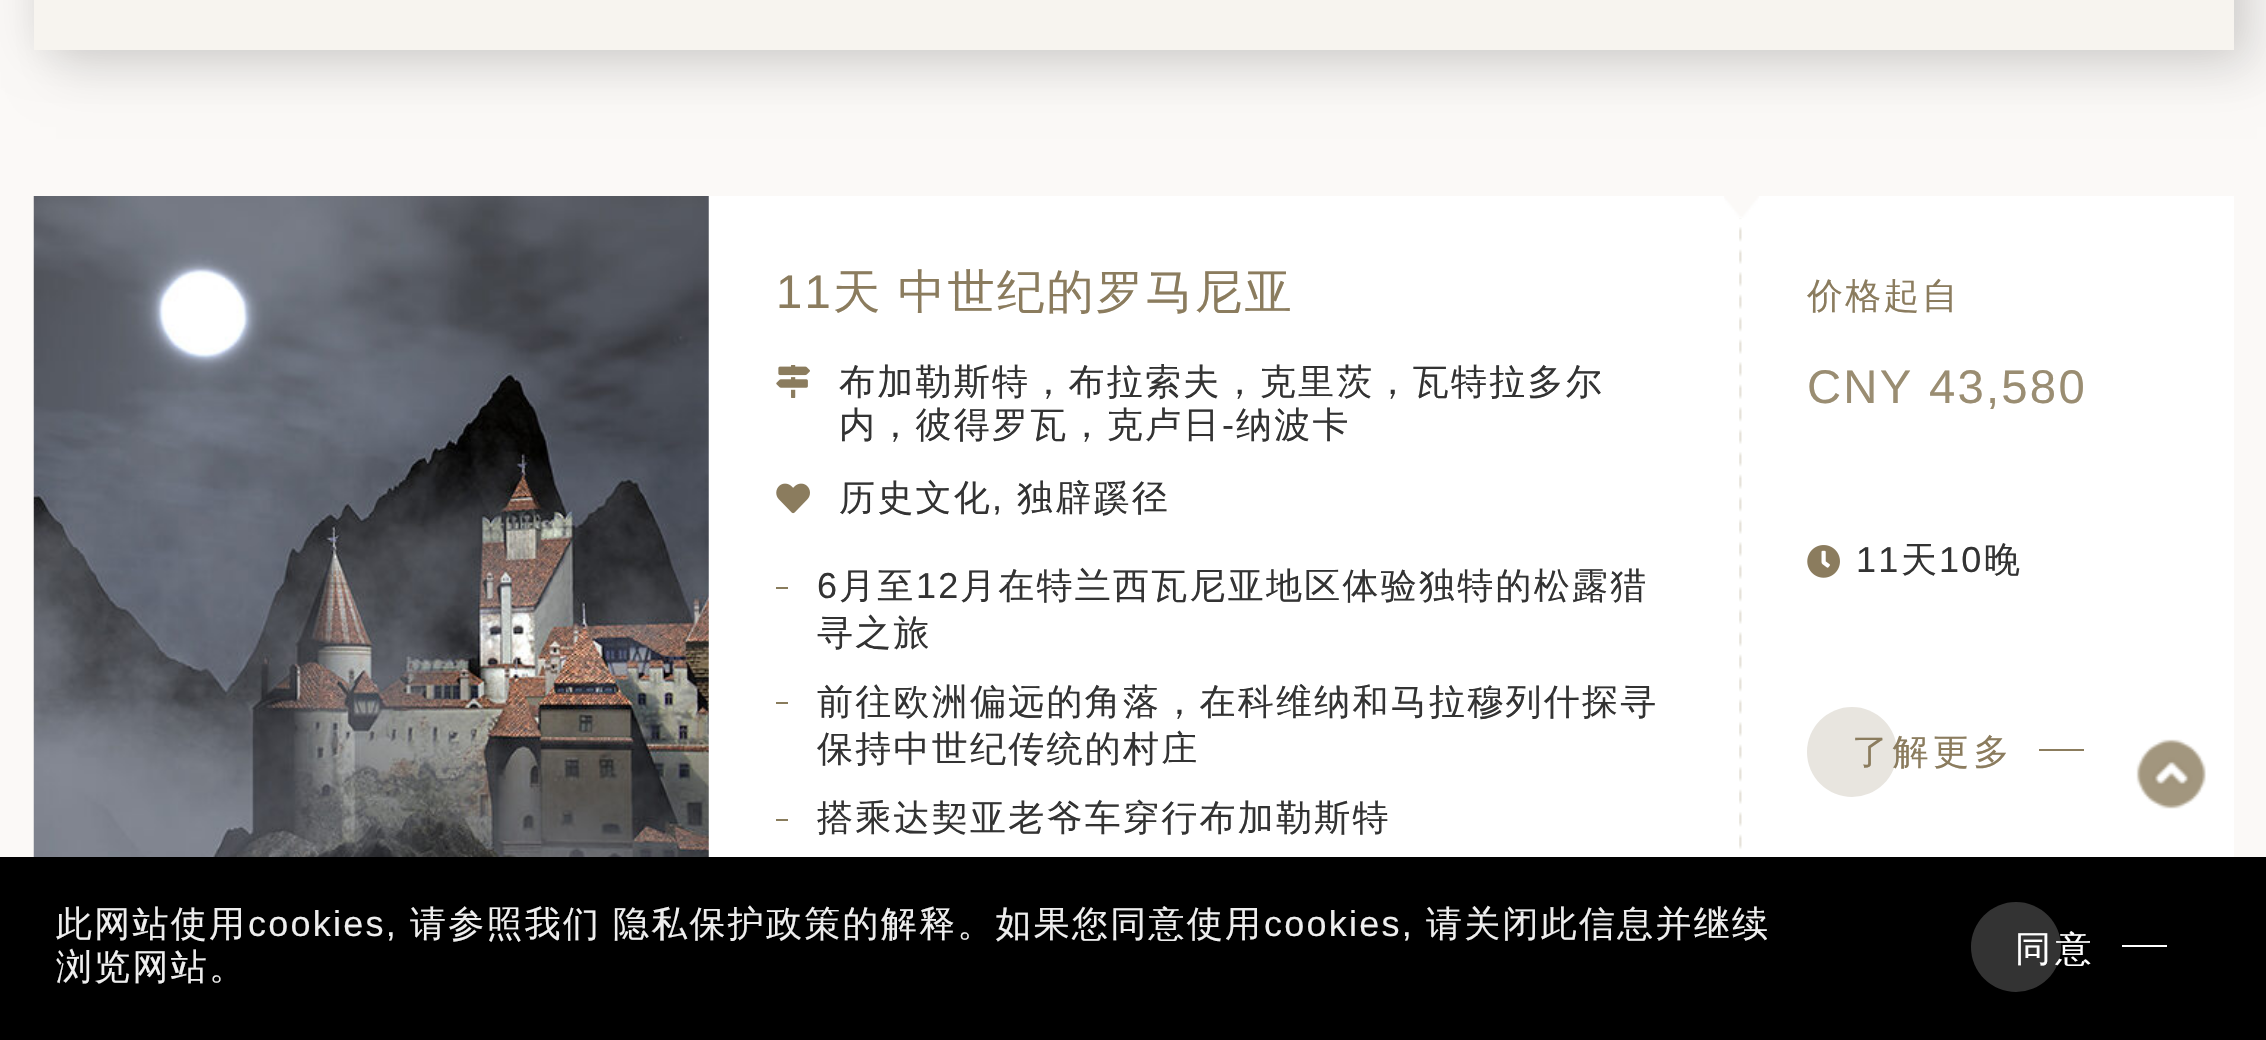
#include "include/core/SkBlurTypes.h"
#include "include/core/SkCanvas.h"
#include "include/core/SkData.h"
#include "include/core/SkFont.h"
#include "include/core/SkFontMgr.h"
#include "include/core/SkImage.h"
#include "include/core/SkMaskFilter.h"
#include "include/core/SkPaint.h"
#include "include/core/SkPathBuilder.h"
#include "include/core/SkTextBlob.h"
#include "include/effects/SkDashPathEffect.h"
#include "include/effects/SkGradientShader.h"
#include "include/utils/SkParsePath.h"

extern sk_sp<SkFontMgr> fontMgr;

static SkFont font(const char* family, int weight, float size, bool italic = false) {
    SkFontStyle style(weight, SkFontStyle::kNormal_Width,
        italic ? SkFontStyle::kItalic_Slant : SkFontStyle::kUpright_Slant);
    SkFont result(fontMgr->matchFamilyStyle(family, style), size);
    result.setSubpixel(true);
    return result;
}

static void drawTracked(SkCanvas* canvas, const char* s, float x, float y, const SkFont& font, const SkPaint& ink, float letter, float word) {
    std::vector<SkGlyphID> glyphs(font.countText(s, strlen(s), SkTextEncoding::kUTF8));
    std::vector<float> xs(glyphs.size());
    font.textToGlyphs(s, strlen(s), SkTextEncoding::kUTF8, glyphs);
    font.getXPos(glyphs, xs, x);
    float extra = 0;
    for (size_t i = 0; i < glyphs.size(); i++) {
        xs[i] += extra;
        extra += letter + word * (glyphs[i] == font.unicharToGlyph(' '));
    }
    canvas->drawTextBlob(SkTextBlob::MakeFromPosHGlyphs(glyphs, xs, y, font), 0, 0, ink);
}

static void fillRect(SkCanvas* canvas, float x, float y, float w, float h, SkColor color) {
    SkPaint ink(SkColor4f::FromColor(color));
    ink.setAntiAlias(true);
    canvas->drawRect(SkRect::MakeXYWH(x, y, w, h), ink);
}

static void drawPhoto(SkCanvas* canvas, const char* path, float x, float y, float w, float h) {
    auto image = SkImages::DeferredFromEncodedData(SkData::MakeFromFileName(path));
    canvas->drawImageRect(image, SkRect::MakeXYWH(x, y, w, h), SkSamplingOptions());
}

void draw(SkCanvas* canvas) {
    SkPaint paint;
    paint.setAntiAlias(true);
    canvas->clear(0xFFFBF9F7);
    paint.setColor(0x1A000000);
    paint.setMaskFilter(SkMaskFilter::MakeBlur(kNormal_SkBlurStyle, 22.5f));
    canvas->drawRect(SkRect::MakeXYWH(34, -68, 2200, 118), paint);
    paint.setMaskFilter(nullptr);
    paint.setMaskFilter(SkMaskFilter::MakeBlur(kNormal_SkBlurStyle, 22.5f));
    canvas->drawRect(SkRect::MakeXYWH(56, -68, 2201, 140), paint);
    paint.setMaskFilter(nullptr);
    fillRect(canvas, 34, 0, 2200, 50, 0xFFF7F4EF);
    fillRect(canvas, 708, 196, 1526, 661, 0xFFFFFFFF);
    drawPhoto(canvas, "assets/img1.png", 33, 196, 676, 661);
    drawPhoto(canvas, "assets/img2.png", 1724, 196, 35, 22);
    SkFont font1 = font("Liberation Sans", 400, 47.25f);
    paint.setColor(0xFF8B7C5E);
    drawTracked(canvas, "11", 776, 308, font1, paint, 2.25f, 0);
    SkFont font2 = font("WenQuanYi Zen Hei", 500, 47.25f);
    drawTracked(canvas, "天 中世纪的罗马尼亚", 833, 308, font2, paint, 2.25f, -1);
    drawPhoto(canvas, "assets/img3.png", 776, 365, 34, 33);
    SkFont font3 = font("WenQuanYi Zen Hei", 500, 36);
    paint.setColor(0xFF333333);
    drawTracked(canvas, "布加勒斯特，布拉索夫，克里茨，瓦特拉多尔", 839, 394, font3, paint, 2.25f, 0);
    drawTracked(canvas, "内，彼得罗瓦，克卢日", 839, 437, font3, paint, 2.25f, 0);
    SkFont font4 = font("Liberation Sans", 400, 36);
    drawTracked(canvas, "-", 1222, 437, font4, paint, 2.25f, 0);
    drawTracked(canvas, "纳波卡", 1236, 437, font3, paint, 2.25f, 0);
    drawPhoto(canvas, "assets/img4.png", 776, 483, 34, 31);
    drawTracked(canvas, "历史文化", 839, 510, font3, paint, 2.25f, 0);
    drawTracked(canvas, ",", 992, 510, font4, paint, 2.25f, 0);
    drawTracked(canvas, "独辟蹊径", 1017, 510, font3, paint, 2.25f, 0);
    fillRect(canvas, 776, 587, 12, 2, 0xFF897C5C);
    drawTracked(canvas, "6", 817, 598, font4, paint, 2.25f, 0);
    drawTracked(canvas, "月至", 839, 598, font3, paint, 2.25f, 0);
    drawTracked(canvas, "12", 916, 598, font4, paint, 2.25f, 0);
    drawTracked(canvas, "月在特兰西瓦尼亚地区体验独特的松露猎", 960, 598, font3, paint, 2.25f, 0);
    drawTracked(canvas, "寻之旅", 817, 645, font3, paint, 2.25f, 0);
    fillRect(canvas, 776, 702, 12, 2, 0xFF897C5C);
    drawTracked(canvas, "前往欧洲偏远的角落，在科维纳和马拉穆列什探寻", 817, 714, font3, paint, 2.25f, 0);
    drawTracked(canvas, "保持中世纪传统的村庄", 817, 761, font3, paint, 2.25f, 0);
    fillRect(canvas, 776, 819, 12, 2, 0xFF897C5C);
    drawTracked(canvas, "搭乘达契亚老爷车穿行布加勒斯特", 817, 830, font3, paint, 2.25f, 0);
    drawPhoto(canvas, "assets/img5.png", 1739, 218, 3, 639);
    paint.setColor(0xFF8B7C5E);
    drawTracked(canvas, "价格起自", 1807, 308, font3, paint, 2.25f, 0);
    paint.setColor(0xFF9A8D72);
    drawTracked(canvas, "CNY 43,580", 1807, 403, font1, paint, 2.25f, 0);
    drawPhoto(canvas, "assets/img6.png", 1807, 545, 33, 33);
    paint.setColor(0xFF333333);
    drawTracked(canvas, "11", 1856, 572, font4, paint, 2.25f, 0);
    drawTracked(canvas, "天", 1901, 572, font3, paint, 2.25f, 0);
    drawTracked(canvas, "10", 1939, 572, font4, paint, 2.25f, 0);
    drawTracked(canvas, "晚", 1984, 572, font3, paint, 2.25f, 0);
    paint.setColor(0xFFE8E5DF);
    canvas->drawCircle(1852, 752, 45, paint);
    paint.setColor(0xFF8B7C5E);
    drawTracked(canvas, "了解更多", 1852, 764, font3, paint, 4.5f, 0);
    fillRect(canvas, 2039, 749, 45, 2, 0xFF8B7C5D);
    drawPhoto(canvas, "assets/img7.png", 2136, 739, 70, 70);
    fillRect(canvas, 0, 857, 2266, 183, 0xFF000000);
    paint.setColor(0xFFEEEEEE);
    drawTracked(canvas, "此网站使用", 56, 936, font3, paint, 2.25f, 0);
    drawTracked(canvas, "cookies,", 248, 936, font4, paint, 2.25f, 0);
    drawTracked(canvas, "请参照我们", 410, 936, font3, paint, 2.25f, 0);
    drawTracked(canvas, "隐私保护政策的解释。如果您同意使用", 613, 936, font3, paint, 2.25f, 0);
    drawTracked(canvas, "cookies,", 1264, 936, font4, paint, 2.25f, 0);
    drawTracked(canvas, "请关闭此信息并继续", 1426, 936, font3, paint, 2.25f, 0);
    drawTracked(canvas, "浏览网站。", 56, 979, font3, paint, 2.25f, 0);
    paint.setColor(0xFF333333);
    canvas->drawCircle(2016, 947, 45, paint);
    paint.setColor(0xFFFFFFFF);
    drawTracked(canvas, "同意", 2015, 961, font3, paint, 4.5f, 0);
    fillRect(canvas, 2122, 945, 45, 2, 0xFFFFFFFF);
}
